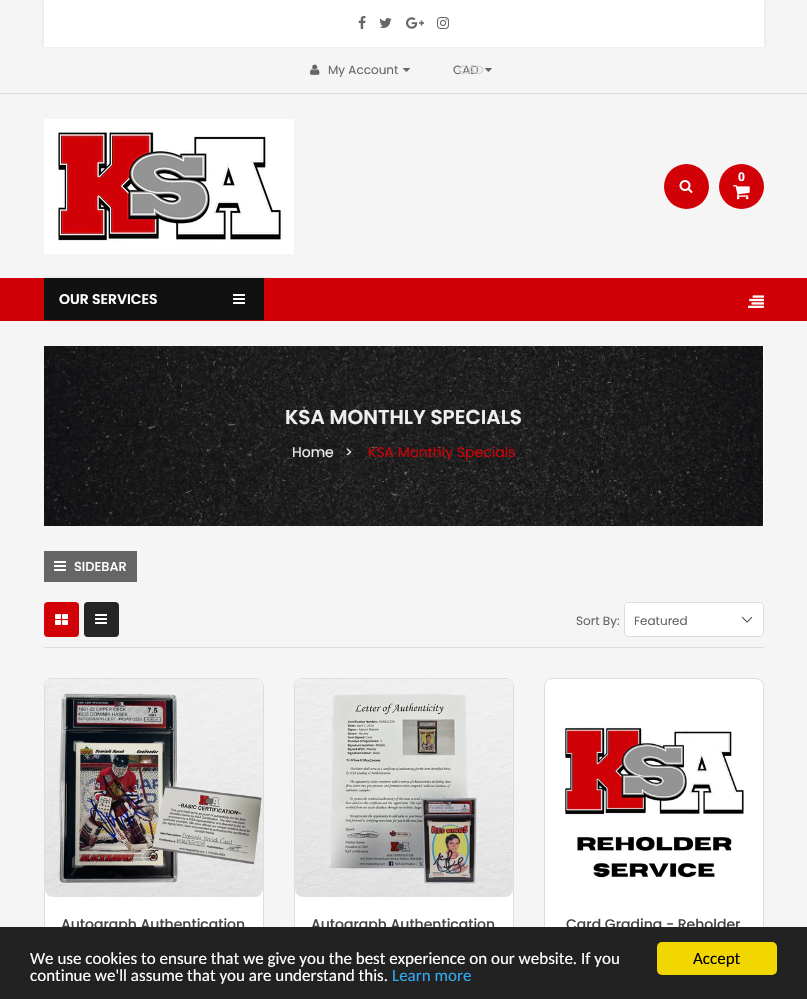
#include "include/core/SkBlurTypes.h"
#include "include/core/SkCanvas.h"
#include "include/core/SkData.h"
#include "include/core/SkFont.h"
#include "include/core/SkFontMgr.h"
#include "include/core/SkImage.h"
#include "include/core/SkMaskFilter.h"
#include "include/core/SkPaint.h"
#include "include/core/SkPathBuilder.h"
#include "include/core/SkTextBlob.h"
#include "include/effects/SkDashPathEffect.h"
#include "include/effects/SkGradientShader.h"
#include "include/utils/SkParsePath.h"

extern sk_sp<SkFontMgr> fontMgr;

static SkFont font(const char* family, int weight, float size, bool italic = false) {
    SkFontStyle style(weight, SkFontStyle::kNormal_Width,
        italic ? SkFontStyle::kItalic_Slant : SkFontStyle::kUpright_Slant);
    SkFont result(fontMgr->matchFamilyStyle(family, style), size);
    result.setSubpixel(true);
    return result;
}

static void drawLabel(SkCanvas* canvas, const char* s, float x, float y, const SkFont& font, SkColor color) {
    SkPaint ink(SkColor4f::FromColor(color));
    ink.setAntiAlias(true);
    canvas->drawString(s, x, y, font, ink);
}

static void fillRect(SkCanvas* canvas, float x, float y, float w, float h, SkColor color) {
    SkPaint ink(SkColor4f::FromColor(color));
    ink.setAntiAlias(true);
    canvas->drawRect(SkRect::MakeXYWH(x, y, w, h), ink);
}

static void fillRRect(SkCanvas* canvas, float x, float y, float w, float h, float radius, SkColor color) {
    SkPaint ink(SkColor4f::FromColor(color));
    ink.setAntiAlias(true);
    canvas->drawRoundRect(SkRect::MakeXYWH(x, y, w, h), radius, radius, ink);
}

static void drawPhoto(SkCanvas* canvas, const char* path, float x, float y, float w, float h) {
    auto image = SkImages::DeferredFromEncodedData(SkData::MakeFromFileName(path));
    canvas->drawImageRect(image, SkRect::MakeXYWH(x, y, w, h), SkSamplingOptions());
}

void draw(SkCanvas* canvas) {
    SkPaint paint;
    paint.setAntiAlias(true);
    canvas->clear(0xFFF5F5F5);
    fillRect(canvas, 0, 93, 807, 1, 0xFFDDDDDD);
    paint.setColor(0x1A000000);
    paint.setMaskFilter(SkMaskFilter::MakeBlur(kNormal_SkBlurStyle, 1.5f));
    canvas->drawRect(SkRect::MakeXYWH(44, -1, 720, 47), paint);
    paint.setMaskFilter(nullptr);
    fillRect(canvas, 44, 0, 720, 47, 0xFFFFFFFF);
    drawPhoto(canvas, "assets/img1.png", 358, 16, 8, 13);
    drawPhoto(canvas, "assets/img2.png", 379, 18, 13, 10);
    drawPhoto(canvas, "assets/img3.png", 406, 17, 18, 12);
    drawPhoto(canvas, "assets/img4.png", 437, 17, 12, 12);
    drawPhoto(canvas, "assets/img5.png", 310, 64, 10, 11);
    SkFont font1 = font("Poppins", 400, 12);
    drawLabel(canvas, "My Account", 328, 74, font1, 0xFF666666);
    drawPhoto(canvas, "assets/img6.png", 403, 68, 7, 4);
    drawLabel(canvas, "CAD", 453, 74, font1, 0xFF666666);
    drawPhoto(canvas, "assets/img6.png", 485, 68, 7, 4);
    drawLabel(canvas, "CAD", 458, 74, font1, 0xFFD1D1D1);
    drawPhoto(canvas, "assets/img7.png", 44, 119, 250, 135);
    paint.setColor(0xFFD20107);
    canvas->drawCircle(686.5f, 186.5f, 22.5f, paint);
    drawPhoto(canvas, "assets/img8.png", 679, 180, 14, 13);
    canvas->drawCircle(741.5f, 186.5f, 22.5f, paint);
    SkFont font2 = font("Roboto", 700, 12);
    drawLabel(canvas, "0", 738, 181, font2, 0xFFFFFFFF);
    drawPhoto(canvas, "assets/img9.png", 733, 185, 17, 15);
    fillRect(canvas, 0, 278, 807, 43, 0xFFD20107);
    paint.setColor(0x1A000000);
    paint.setMaskFilter(SkMaskFilter::MakeBlur(kNormal_SkBlurStyle, 1.5f));
    canvas->drawRect(SkRect::MakeXYWH(44, 278, 220, 42), paint);
    paint.setMaskFilter(nullptr);
    fillRect(canvas, 44, 278, 220, 42, 0xFF111111);
    SkFont font3 = font("Poppins", 600, 14);
    drawLabel(canvas, "OUR SERVICES", 59, 304, font3, 0xFFFFFFFF);
    drawPhoto(canvas, "assets/img10.png", 233, 294, 12, 10);
    drawPhoto(canvas, "assets/img11.png", 748, 295, 16, 13);
    fillRect(canvas, 763, 346, 1, 180, 0xFFFFFFFF);
    drawPhoto(canvas, "assets/img12.png", 44, 346, 719, 180);
    SkFont font4 = font("Poppins", 600, 20);
    drawLabel(canvas, "KSA MONTHLY SPECIALS", 285, 424, font4, 0xFFEEEEEE);
    SkFont font5 = font("Poppins", 400, 14);
    drawLabel(canvas, "Home", 292, 457, font5, 0xFFEEEEEE);
    drawLabel(canvas, ">", 345, 457, font5, 0xFFEEEEEE);
    drawLabel(canvas, "KSA Monthly Specials", 368, 457, font5, 0xFFD20107);
    fillRect(canvas, 44, 551, 93, 31, 0xFF666666);
    drawPhoto(canvas, "assets/img13.png", 54, 561, 12, 10);
    SkFont font6 = font("Poppins", 500, 13);
    drawLabel(canvas, "SIDEBAR", 74, 571, font6, 0xFFFFFFFF);
    fillRect(canvas, 44, 647, 720, 1, 0xFFDDDDDD);
    fillRRect(canvas, 44, 602, 35, 35, 4, 0xFFD20107);
    drawPhoto(canvas, "assets/img14.png", 55, 614, 13, 11);
    fillRRect(canvas, 84, 602, 35, 35, 4, 0xFF252525);
    drawPhoto(canvas, "assets/img15.png", 95, 614, 12, 10);
    drawLabel(canvas, "Sort By:", 576, 625, font1, 0xFF666666);
    fillRRect(canvas, 624, 602, 140, 35, 4, 0xFFFFFFFF);
    drawPhoto(canvas, "assets/img16.png", 741, 616, 12, 7);
    paint.setStroke(true);
    paint.setStrokeWidth(1);
    paint.setColor(0xFFDDDDDD);
    canvas->drawRoundRect(SkRect::MakeXYWH(624.5f, 602.5f, 139, 34), 3.5f, 3.5f, paint);
    drawLabel(canvas, "Featured", 634, 625, font1, 0xFF666666);
    paint.setStroke(false);
    paint.setColor(0xFFFFFFFF);
    canvas->drawRoundRect(SkRect::MakeXYWH(44.5f, 678.5f, 219, 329), 7.5f, 7.5f, paint);
    paint.setStroke(true);
    paint.setColor(0xFFDDDDDD);
    canvas->drawRoundRect(SkRect::MakeXYWH(44.5f, 678.5f, 219, 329), 7.5f, 7.5f, paint);
    drawPhoto(canvas, "assets/img17.png", 45, 679, 218, 218);
    SkFont font7 = font("Poppins", 500, 14);
    drawLabel(canvas, "Autograph Authentication", 61, 929, font7, 0xFF444444);
    paint.setStroke(false);
    paint.setColor(0xFFFFFFFF);
    canvas->drawRoundRect(SkRect::MakeXYWH(294.5f, 678.5f, 219, 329), 7.5f, 7.5f, paint);
    paint.setStroke(true);
    paint.setColor(0xFFDDDDDD);
    canvas->drawRoundRect(SkRect::MakeXYWH(294.5f, 678.5f, 219, 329), 7.5f, 7.5f, paint);
    drawPhoto(canvas, "assets/img18.png", 295, 679, 218, 218);
    drawLabel(canvas, "Autograph Authentication", 311, 929, font7, 0xFF444444);
    paint.setStroke(false);
    paint.setColor(0xFFFFFFFF);
    canvas->drawRoundRect(SkRect::MakeXYWH(544.5f, 678.5f, 219, 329), 7.5f, 7.5f, paint);
    paint.setStroke(true);
    paint.setColor(0xFFDDDDDD);
    canvas->drawRoundRect(SkRect::MakeXYWH(544.5f, 678.5f, 219, 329), 7.5f, 7.5f, paint);
    drawPhoto(canvas, "assets/img19.png", 546, 681, 216, 198);
    drawLabel(canvas, "Card Grading - Reholder", 566, 929, font7, 0xFF444444);
    fillRect(canvas, 0, 927, 807, 72, 0xFF222222);
    SkFont font8 = font("Carlito", 400, 17);
    drawLabel(canvas, "We use cookies to ensure that we give you the best experience on our website. If you", 30, 964, font8, 0xFFFFFFFF);
    drawLabel(canvas, "continue we'll assume that you are understand this.", 30, 981, font8, 0xFFFFFFFF);
    drawLabel(canvas, "Learn more", 392, 981, font8, 0xFF31A8F0);
    fillRRect(canvas, 657, 942, 120, 33, 5, 0xFFF1D600);
    drawLabel(canvas, "Accept", 693, 964, font8, 0xFF000000);
}
